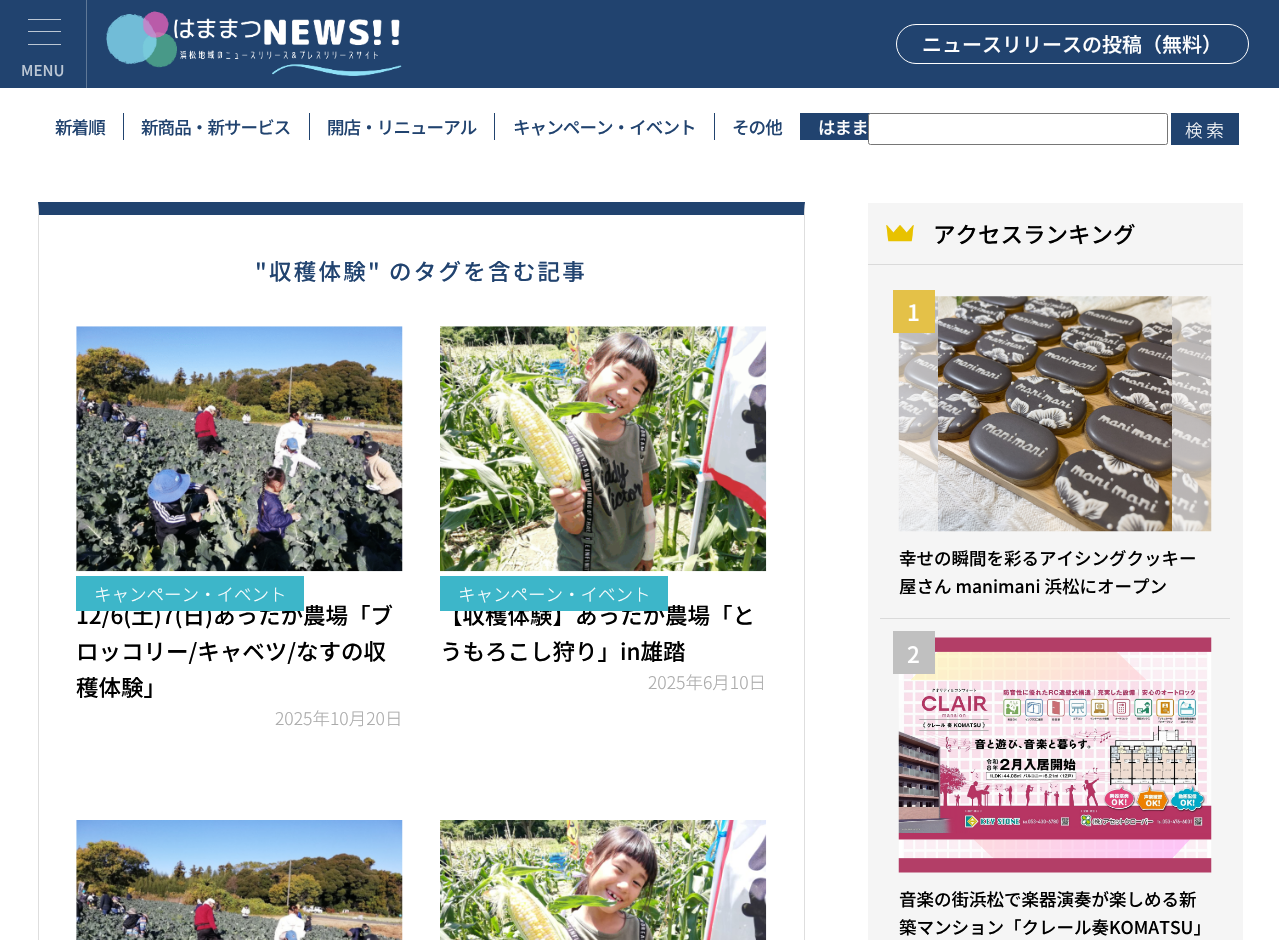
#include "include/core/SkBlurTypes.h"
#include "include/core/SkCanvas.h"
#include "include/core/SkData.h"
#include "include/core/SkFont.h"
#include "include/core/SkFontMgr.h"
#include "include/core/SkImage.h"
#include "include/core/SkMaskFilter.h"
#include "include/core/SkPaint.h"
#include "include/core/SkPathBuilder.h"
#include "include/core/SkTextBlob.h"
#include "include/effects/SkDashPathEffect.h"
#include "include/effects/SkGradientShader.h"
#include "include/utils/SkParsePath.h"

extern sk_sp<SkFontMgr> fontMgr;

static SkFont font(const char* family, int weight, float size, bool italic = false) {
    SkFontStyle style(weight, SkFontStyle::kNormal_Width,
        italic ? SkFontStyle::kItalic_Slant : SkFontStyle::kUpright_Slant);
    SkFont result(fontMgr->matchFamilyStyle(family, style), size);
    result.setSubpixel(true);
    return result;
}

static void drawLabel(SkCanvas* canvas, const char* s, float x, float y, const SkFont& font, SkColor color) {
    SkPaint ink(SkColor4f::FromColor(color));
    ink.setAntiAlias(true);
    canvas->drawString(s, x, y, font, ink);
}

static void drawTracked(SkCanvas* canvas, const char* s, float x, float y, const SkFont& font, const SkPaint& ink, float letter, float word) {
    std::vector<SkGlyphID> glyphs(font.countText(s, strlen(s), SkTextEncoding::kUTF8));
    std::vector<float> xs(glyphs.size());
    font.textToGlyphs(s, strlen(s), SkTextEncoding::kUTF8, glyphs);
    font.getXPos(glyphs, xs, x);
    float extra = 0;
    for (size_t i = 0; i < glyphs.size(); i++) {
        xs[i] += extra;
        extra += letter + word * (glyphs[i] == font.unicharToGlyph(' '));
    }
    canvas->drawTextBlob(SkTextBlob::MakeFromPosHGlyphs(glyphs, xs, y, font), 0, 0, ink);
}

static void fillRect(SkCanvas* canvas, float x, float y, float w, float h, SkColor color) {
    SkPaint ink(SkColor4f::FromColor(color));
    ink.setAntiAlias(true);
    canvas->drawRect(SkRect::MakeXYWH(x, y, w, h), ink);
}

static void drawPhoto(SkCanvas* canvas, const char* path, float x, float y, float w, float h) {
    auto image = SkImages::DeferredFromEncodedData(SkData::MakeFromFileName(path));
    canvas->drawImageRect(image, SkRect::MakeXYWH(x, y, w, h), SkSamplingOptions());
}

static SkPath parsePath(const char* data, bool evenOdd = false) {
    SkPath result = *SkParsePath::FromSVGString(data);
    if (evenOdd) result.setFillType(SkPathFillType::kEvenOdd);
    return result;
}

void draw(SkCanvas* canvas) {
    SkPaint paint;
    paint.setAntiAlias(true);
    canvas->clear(0xFFFFFFFF);
    fillRect(canvas, 0, 0, 1279, 88, 0xFF21436F);
    drawPhoto(canvas, "assets/img1.png", 106, 11, 296, 65);
    paint.setStroke(true);
    paint.setStrokeWidth(1);
    paint.setColor(0xFFFFFFFF);
    canvas->drawRoundRect(SkRect::MakeXYWH(896.5f, 24.5f, 352, 39), 19.5f, 19.5f, paint);
    SkFont font1 = font("Noto Sans JP", 500, 20);
    drawLabel(canvas, "ニュースリリースの投稿（無料）", 922, 52, font1, 0xFFFFFFFF);
    fillRect(canvas, 86, 0, 1, 88, 0xFF5F7897);
    fillRect(canvas, 28, 19, 33, 1, 0xFFBCC7D4);
    fillRect(canvas, 28, 31, 33, 1, 0xFFBCC7D4);
    fillRect(canvas, 28, 44, 33, 1, 0xFFBCC7D4);
    SkFont font2 = font("Noto Sans JP", 500, 15);
    drawLabel(canvas, "MENU", 21, 76, font2, 0xFFBCC7D4);
    fillRect(canvas, 123, 113, 1, 27, 0xFF21436F);
    SkFont font3 = font("Noto Sans JP", 500, 17.5f);
    paint.setStroke(false);
    paint.setColor(0xFF21436F);
    drawTracked(canvas, "新着順", 55, 134, font3, paint, -0.9f, 0);
    fillRect(canvas, 309, 113, 1, 27, 0xFF21436F);
    drawTracked(canvas, "新商品・新サービス", 141, 134, font3, paint, -0.9f, 0);
    fillRect(canvas, 494, 113, 1, 27, 0xFF21436F);
    drawTracked(canvas, "開店・リニューアル", 327, 134, font3, paint, -0.9f, 0);
    fillRect(canvas, 714, 113, 1, 27, 0xFF21436F);
    drawTracked(canvas, "キャンペーン・イベント", 513, 134, font3, paint, -0.9f, 0);
    fillRect(canvas, 800, 113, 71, 27, 0xFF21436F);
    drawTracked(canvas, "その他", 732, 134, font3, paint, -0.9f, 0);
    paint.setColor(0xFFFFFFFF);
    drawTracked(canvas, "はまま", 818, 134, font3, paint, -0.9f, 0);
    canvas->drawRoundRect(SkRect::MakeXYWH(868.5f, 113.5f, 299, 31), 2, 2, paint);
    paint.setStroke(true);
    paint.setColor(0xFF767676);
    canvas->drawRoundRect(SkRect::MakeXYWH(868.5f, 113.5f, 299, 31), 2, 2, paint);
    fillRect(canvas, 1171, 113, 68, 32, 0xFF21436F);
    SkFont font4 = font("Noto Sans JP", 300, 17.5f);
    drawLabel(canvas, "検 索", 1185, 137, font4, 0xFFFFFFFF);
    paint.setStroke(false);
    paint.setColor(0xFF21436F);
    canvas->drawPath(parsePath("M38 202H805L804 215H39Z"), paint);
    paint.setColor(0xFFDEDEDE);
    canvas->drawPath(parsePath("M805 202V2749L804 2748V215Z"), paint);
    canvas->drawPath(parsePath("M38 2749V202L39 215V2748Z"), paint);
    SkFont font5 = font("Noto Sans JP", 500, 22.5f);
    paint.setColor(0xFF21436F);
    drawTracked(canvas, "\"収穫体験\" のタグを含む記事", 255, 280, font5, paint, 2.25f, 0);
    drawPhoto(canvas, "assets/img2.png", 76, 326, 327, 246);
    drawLabel(canvas, "12/6(土)7(日)あったか農場「ブ", 76, 624, font5, 0xFF000000);
    fillRect(canvas, 76, 576, 228, 35, 0xFF3DB6C9);
    drawLabel(canvas, "キャンペーン・イベント", 94, 601, font4, 0xFFFFFFFF);
    drawLabel(canvas, "ロッコリー/キャベツ/なすの収", 76, 660, font5, 0xFF000000);
    drawLabel(canvas, "穫体験」", 76, 696, font5, 0xFF000000);
    drawLabel(canvas, "2025年10月20日", 275, 725, font4, 0xFFAAAAAA);
    drawPhoto(canvas, "assets/img3.png", 440, 326, 327, 246);
    drawLabel(canvas, "【収穫体験】あったか農場「と", 440, 624, font5, 0xFF000000);
    fillRect(canvas, 440, 576, 228, 35, 0xFF3DB6C9);
    drawLabel(canvas, "キャンペーン・イベント", 458, 601, font4, 0xFFFFFFFF);
    drawLabel(canvas, "うもろこし狩り」in雄踏", 440, 660, font5, 0xFF000000);
    drawLabel(canvas, "2025年6月10日", 648, 689, font4, 0xFFAAAAAA);
    drawPhoto(canvas, "assets/img4.png", 76, 820, 327, 120);
    drawPhoto(canvas, "assets/img5.png", 440, 820, 327, 120);
    fillRect(canvas, 868, 203, 375, 737, 0xFFF5F5F5);
    fillRect(canvas, 868, 264, 375, 1, 0xFFDADADA);
    drawPhoto(canvas, "assets/img6.png", 886, 225, 28, 17);
    drawLabel(canvas, "アクセスランキング", 933, 243, font5, 0xFF000000);
    fillRect(canvas, 880, 618, 350, 1, 0xFFDADADA);
    drawPhoto(canvas, "assets/img7.png", 898, 296, 314, 236);
    fillRect(canvas, 893, 290, 42, 43, 0xFFE4C148);
    drawLabel(canvas, "1", 907, 321, font5, 0xFFFFFFFF);
    drawLabel(canvas, "幸せの瞬間を彩るアイシングクッキー", 899, 565, font3, 0xFF000000);
    drawLabel(canvas, "屋さん manimani 浜松にオープン", 899, 593, font3, 0xFF000000);
    drawPhoto(canvas, "assets/img8.png", 898, 637, 314, 236);
    fillRect(canvas, 893, 631, 42, 43, 0xFFC0C0C0);
    drawLabel(canvas, "2", 907, 663, font5, 0xFFFFFFFF);
    drawLabel(canvas, "音楽の街浜松で楽器演奏が楽しめる新", 899, 906, font3, 0xFF000000);
    drawLabel(canvas, "築マンション「クレール奏KOMATSU」", 899, 934, font3, 0xFF000000);
}
